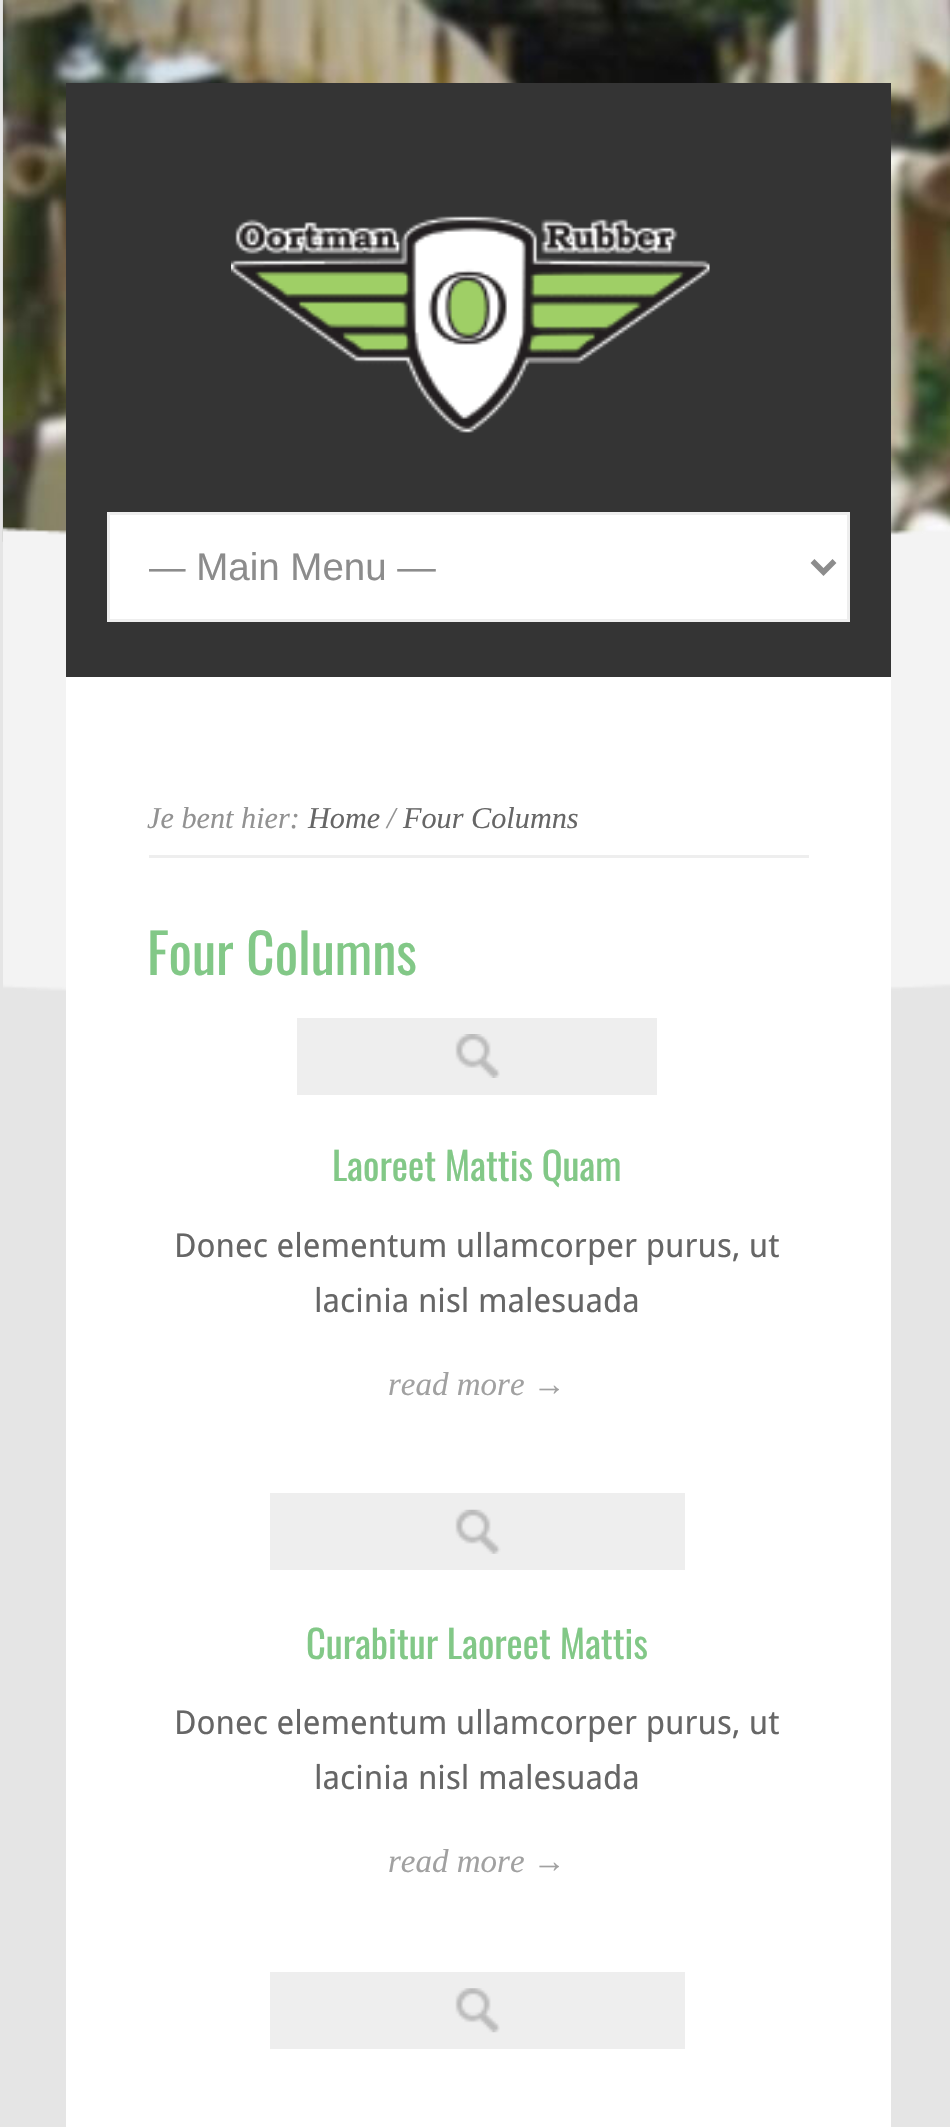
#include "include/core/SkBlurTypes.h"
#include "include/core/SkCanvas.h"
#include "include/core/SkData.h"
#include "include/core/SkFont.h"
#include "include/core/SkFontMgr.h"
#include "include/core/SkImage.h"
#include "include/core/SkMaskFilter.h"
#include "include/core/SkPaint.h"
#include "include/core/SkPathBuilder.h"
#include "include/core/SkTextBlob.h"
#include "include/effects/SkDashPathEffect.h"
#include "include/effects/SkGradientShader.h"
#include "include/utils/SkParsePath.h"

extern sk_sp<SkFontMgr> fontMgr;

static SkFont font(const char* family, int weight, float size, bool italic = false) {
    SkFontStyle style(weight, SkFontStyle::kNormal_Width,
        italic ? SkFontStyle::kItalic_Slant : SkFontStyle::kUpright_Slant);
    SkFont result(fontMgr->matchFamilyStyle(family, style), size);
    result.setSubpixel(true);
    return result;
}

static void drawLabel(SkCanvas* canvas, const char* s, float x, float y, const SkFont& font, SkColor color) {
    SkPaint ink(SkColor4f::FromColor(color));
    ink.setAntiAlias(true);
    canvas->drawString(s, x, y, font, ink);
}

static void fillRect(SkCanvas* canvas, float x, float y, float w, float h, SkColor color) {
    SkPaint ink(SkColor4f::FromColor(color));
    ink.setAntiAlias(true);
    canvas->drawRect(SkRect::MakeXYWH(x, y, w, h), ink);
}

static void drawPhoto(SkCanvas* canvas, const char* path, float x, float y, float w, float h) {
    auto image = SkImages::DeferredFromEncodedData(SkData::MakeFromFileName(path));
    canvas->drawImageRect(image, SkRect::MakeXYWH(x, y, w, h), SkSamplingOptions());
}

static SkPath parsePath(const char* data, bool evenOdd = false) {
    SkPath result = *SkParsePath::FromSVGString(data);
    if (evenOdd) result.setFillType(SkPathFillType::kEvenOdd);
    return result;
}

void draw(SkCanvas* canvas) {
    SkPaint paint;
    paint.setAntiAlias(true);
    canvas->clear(0xFFE5E5E5);
    drawPhoto(canvas, "assets/img1.png", 2, 0, 948, 542);
    drawPhoto(canvas, "assets/img2.png", 3, 527, 947, 464);
    fillRect(canvas, 66, 83, 825, 594, 0xFF343434);
    drawPhoto(canvas, "assets/img3.png", 231, 216, 479, 217);
    paint.setColor(0xFFFFFFFF);
    canvas->drawRect(SkRect::MakeXYWH(108.5f, 513.5f, 740, 107), paint);
    paint.setStroke(true);
    paint.setStrokeWidth(3);
    paint.setColor(0xFFEEEEEE);
    canvas->drawRect(SkRect::MakeXYWH(108.5f, 513.5f, 740, 107), paint);
    paint.setStrokeWidth(5.5f);
    paint.setColor(0xFF8C8C8C);
    canvas->drawPath(parsePath("M812.5 561L823.5 572L834.5 561"), paint);
    canvas->save();
    canvas->clipRect(SkRect::MakeXYWH(149, 542, 627, 49));
    SkFont font1 = font("Liberation Sans", 400, 38.5f);
    drawLabel(canvas, "— Main Menu —", 147, 580, font1, 0xFF8C8C8C);
    canvas->restore();
    fillRect(canvas, 66, 677, 825, 1450, 0xFFFFFFFF);
    fillRect(canvas, 149, 855, 660, 3, 0xFFEEEEEE);
    SkFont font2 = font("Liberation Serif", 400, 30.25f, true);
    drawLabel(canvas, "Je bent hier:", 147, 828, font2, 0xFF929292);
    drawLabel(canvas, "Home", 308, 828, font2, 0xFF666666);
    drawLabel(canvas, "/", 387, 828, font2, 0xFF929292);
    drawLabel(canvas, "Four Columns", 403, 828, font2, 0xFF666666);
    SkFont font3 = font("Oswald", 400, 55);
    drawLabel(canvas, "Four Columns", 147, 975, font3, 0xFF82C887);
    fillRect(canvas, 297, 1018, 360, 77, 0xFFEEEEEE);
    drawPhoto(canvas, "assets/img4.png", 455, 1034, 45, 44);
    SkFont font4 = font("Oswald", 400, 38.5f);
    drawLabel(canvas, "Laoreet Mattis Quam", 332, 1181, font4, 0xFF82C887);
    SkFont font5 = font("Droid Sans", 400, 33);
    drawLabel(canvas, "Donec elementum ullamcorper purus, ut", 174, 1257, font5, 0xFF666666);
    drawLabel(canvas, "lacinia nisl malesuada", 314, 1312, font5, 0xFF666666);
    SkFont font6 = font("Liberation Serif", 400, 33, true);
    drawLabel(canvas, "read more →", 388, 1395, font6, 0xFFA1A1A1);
    fillRect(canvas, 270, 1493, 415, 77, 0xFFEEEEEE);
    drawPhoto(canvas, "assets/img5.png", 455, 1509, 46, 45);
    drawLabel(canvas, "Curabitur Laoreet Mattis", 306, 1659, font4, 0xFF82C887);
    drawLabel(canvas, "Donec elementum ullamcorper purus, ut", 174, 1734, font5, 0xFF666666);
    drawLabel(canvas, "lacinia nisl malesuada", 314, 1789, font5, 0xFF666666);
    drawLabel(canvas, "read more →", 388, 1872, font6, 0xFFA1A1A1);
    fillRect(canvas, 270, 1972, 415, 77, 0xFFEEEEEE);
    drawPhoto(canvas, "assets/img6.png", 455, 1988, 45, 45);
}
